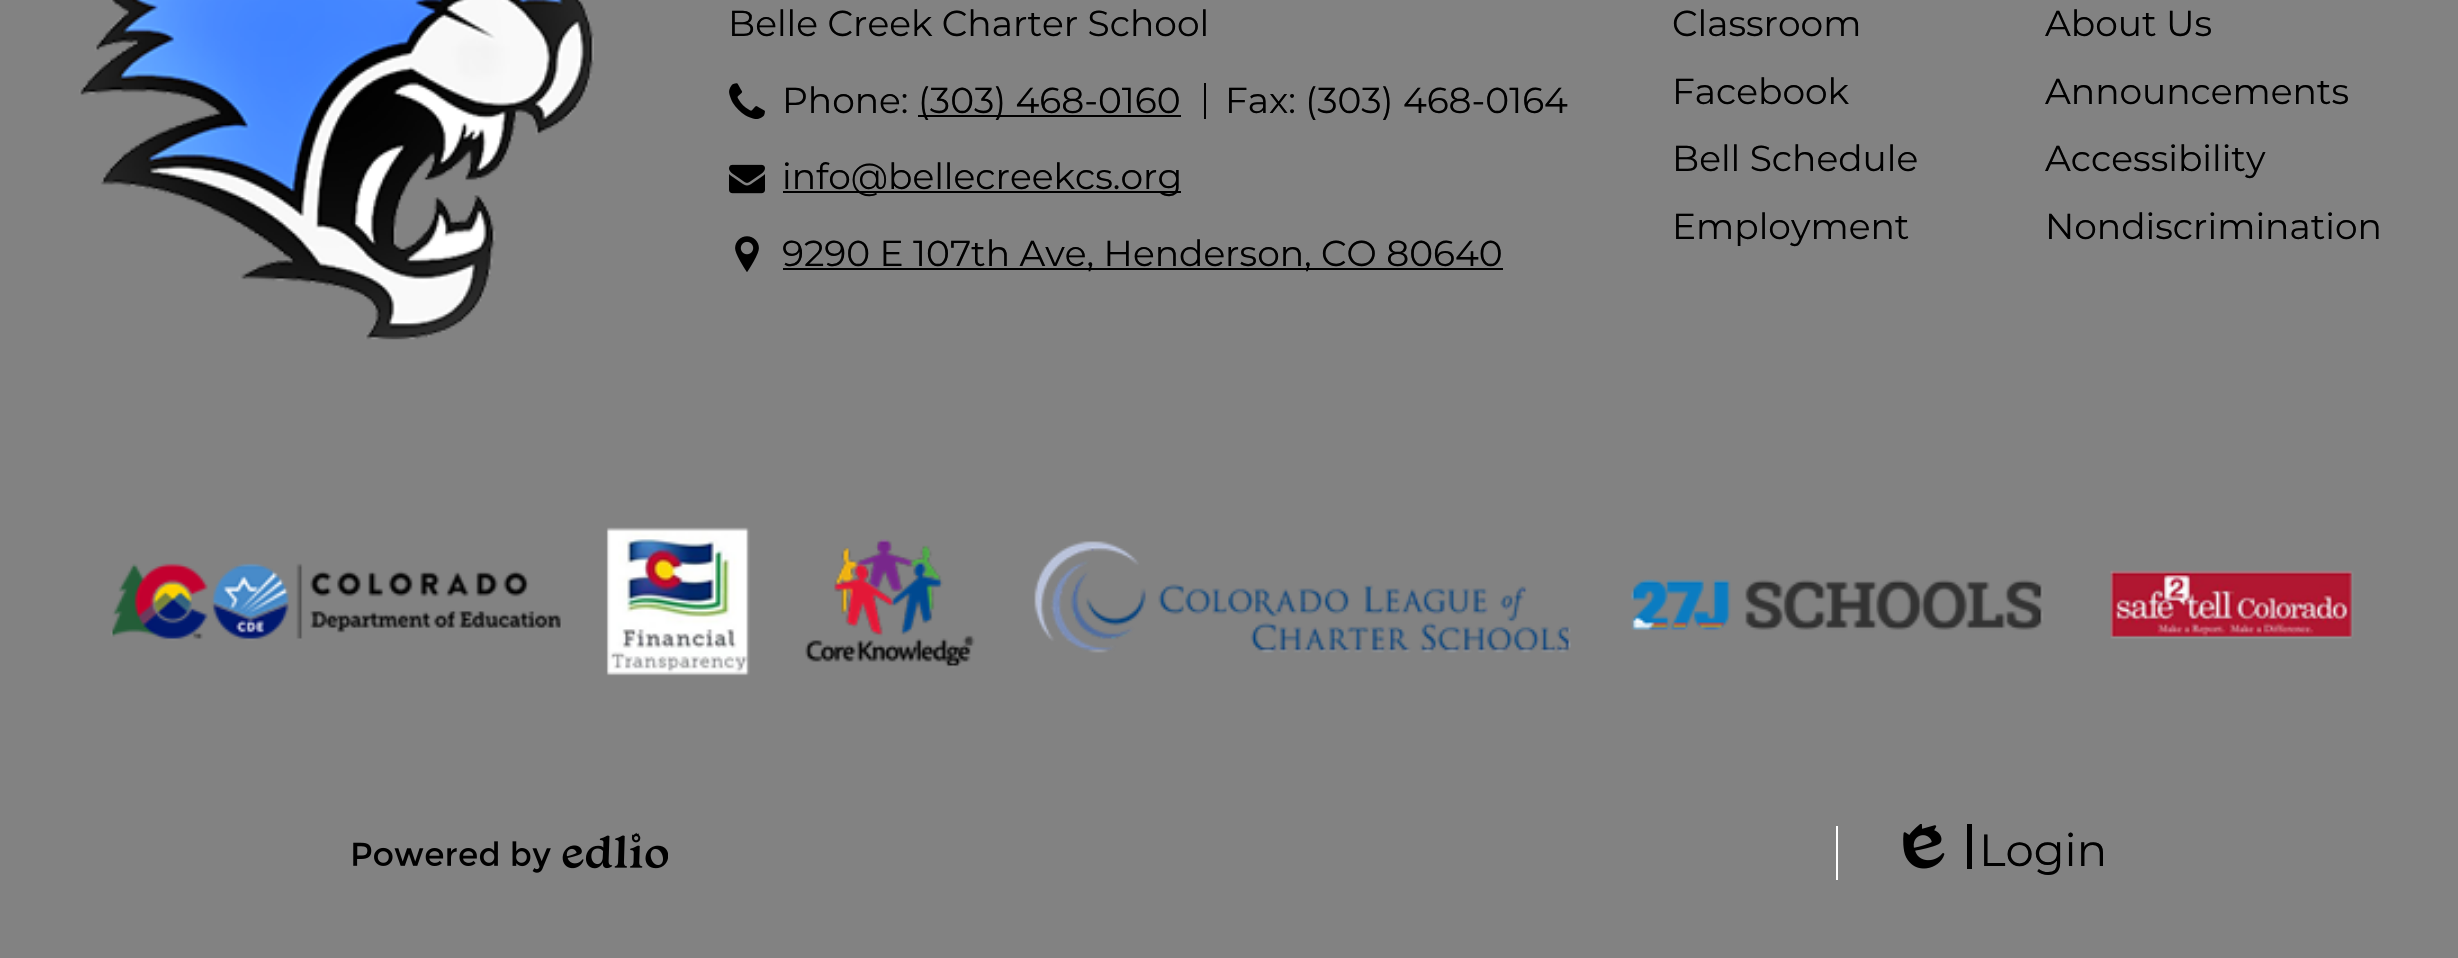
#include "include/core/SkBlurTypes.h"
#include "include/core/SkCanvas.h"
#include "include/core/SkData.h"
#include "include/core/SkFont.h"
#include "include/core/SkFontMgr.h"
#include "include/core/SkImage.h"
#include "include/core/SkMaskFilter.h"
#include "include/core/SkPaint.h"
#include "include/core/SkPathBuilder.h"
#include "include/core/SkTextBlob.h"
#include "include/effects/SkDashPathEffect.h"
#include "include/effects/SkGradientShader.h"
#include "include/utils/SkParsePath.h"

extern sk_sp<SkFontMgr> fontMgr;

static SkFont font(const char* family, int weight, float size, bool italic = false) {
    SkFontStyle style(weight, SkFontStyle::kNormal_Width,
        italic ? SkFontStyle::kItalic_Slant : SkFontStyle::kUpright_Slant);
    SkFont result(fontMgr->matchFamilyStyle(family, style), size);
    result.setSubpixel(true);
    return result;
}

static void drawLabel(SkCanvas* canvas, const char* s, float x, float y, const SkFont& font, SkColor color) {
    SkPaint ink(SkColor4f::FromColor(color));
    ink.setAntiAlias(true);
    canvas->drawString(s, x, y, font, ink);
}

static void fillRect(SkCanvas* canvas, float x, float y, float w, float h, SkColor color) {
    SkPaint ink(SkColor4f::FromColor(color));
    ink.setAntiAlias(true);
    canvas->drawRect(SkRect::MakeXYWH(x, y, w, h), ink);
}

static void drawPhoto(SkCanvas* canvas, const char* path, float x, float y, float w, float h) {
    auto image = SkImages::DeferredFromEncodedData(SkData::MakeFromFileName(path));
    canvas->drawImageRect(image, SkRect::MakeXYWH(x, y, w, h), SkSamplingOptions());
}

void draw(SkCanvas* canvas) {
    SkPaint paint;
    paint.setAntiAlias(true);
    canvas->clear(0xFF828282);
    drawPhoto(canvas, "assets/img1.png", 79, 0, 515, 340);
    SkFont font1 = font("Montserrat", 400, 36);
    drawLabel(canvas, "Belle Creek Charter School", 728, 36, font1, 0xFF000000);
    drawPhoto(canvas, "assets/img2.png", 729, 83, 36, 36);
    drawLabel(canvas, "Phone:", 782, 113, font1, 0xFF000000);
    fillRect(canvas, 918, 115, 263, 2, 0xFF000000);
    drawLabel(canvas, "(303) 468-0160", 918, 113, font1, 0xFF000000);
    fillRect(canvas, 1204, 83, 2, 36, 0xFF000000);
    drawLabel(canvas, "Fax: (303) 468-0164", 1225, 113, font1, 0xFF000000);
    drawPhoto(canvas, "assets/img3.png", 729, 164, 36, 30);
    fillRect(canvas, 783, 191, 398, 2, 0xFF000000);
    drawLabel(canvas, "info@bellecreekcs.org", 782, 189, font1, 0xFF000000);
    drawPhoto(canvas, "assets/img4.png", 735, 236, 24, 36);
    fillRect(canvas, 783, 268, 720, 2, 0xFF000000);
    drawLabel(canvas, "9290 E 107th Ave, Henderson, CO 80640", 782, 266, font1, 0xFF000000);
    drawLabel(canvas, "Classroom", 1672, 36, font1, 0xFF000000);
    drawLabel(canvas, "About Us", 2045, 36, font1, 0xFF000000);
    drawLabel(canvas, "Facebook", 1672, 104, font1, 0xFF000000);
    drawLabel(canvas, "Announcements", 2045, 104, font1, 0xFF000000);
    drawLabel(canvas, "Bell Schedule", 1672, 171, font1, 0xFF000000);
    drawLabel(canvas, "Accessibility", 2045, 171, font1, 0xFF000000);
    drawLabel(canvas, "Employment", 1672, 239, font1, 0xFF000000);
    drawLabel(canvas, "Nondiscrimination", 2045, 239, font1, 0xFF000000);
    drawPhoto(canvas, "assets/img5.png", 110, 563, 452, 78);
    drawPhoto(canvas, "assets/img6.png", 606, 527, 144, 149);
    drawPhoto(canvas, "assets/img7.png", 805, 539, 170, 129);
    drawPhoto(canvas, "assets/img8.png", 1034, 541, 537, 112);
    drawPhoto(canvas, "assets/img9.png", 1630, 579, 414, 52);
    drawPhoto(canvas, "assets/img10.png", 2110, 570, 244, 69);
    drawPhoto(canvas, "assets/img11.png", 353, 832, 315, 41);
    fillRect(canvas, 1836, 826, 2, 54, 0xFFFFFFFF);
    fillRect(canvas, 1967, 824, 5, 45, 0xFF000000);
    drawPhoto(canvas, "assets/img12.png", 1903, 824, 42, 45);
    SkFont font2 = font("Montserrat", 400, 45);
    drawLabel(canvas, "Login", 1979, 866, font2, 0xFF000000);
}
